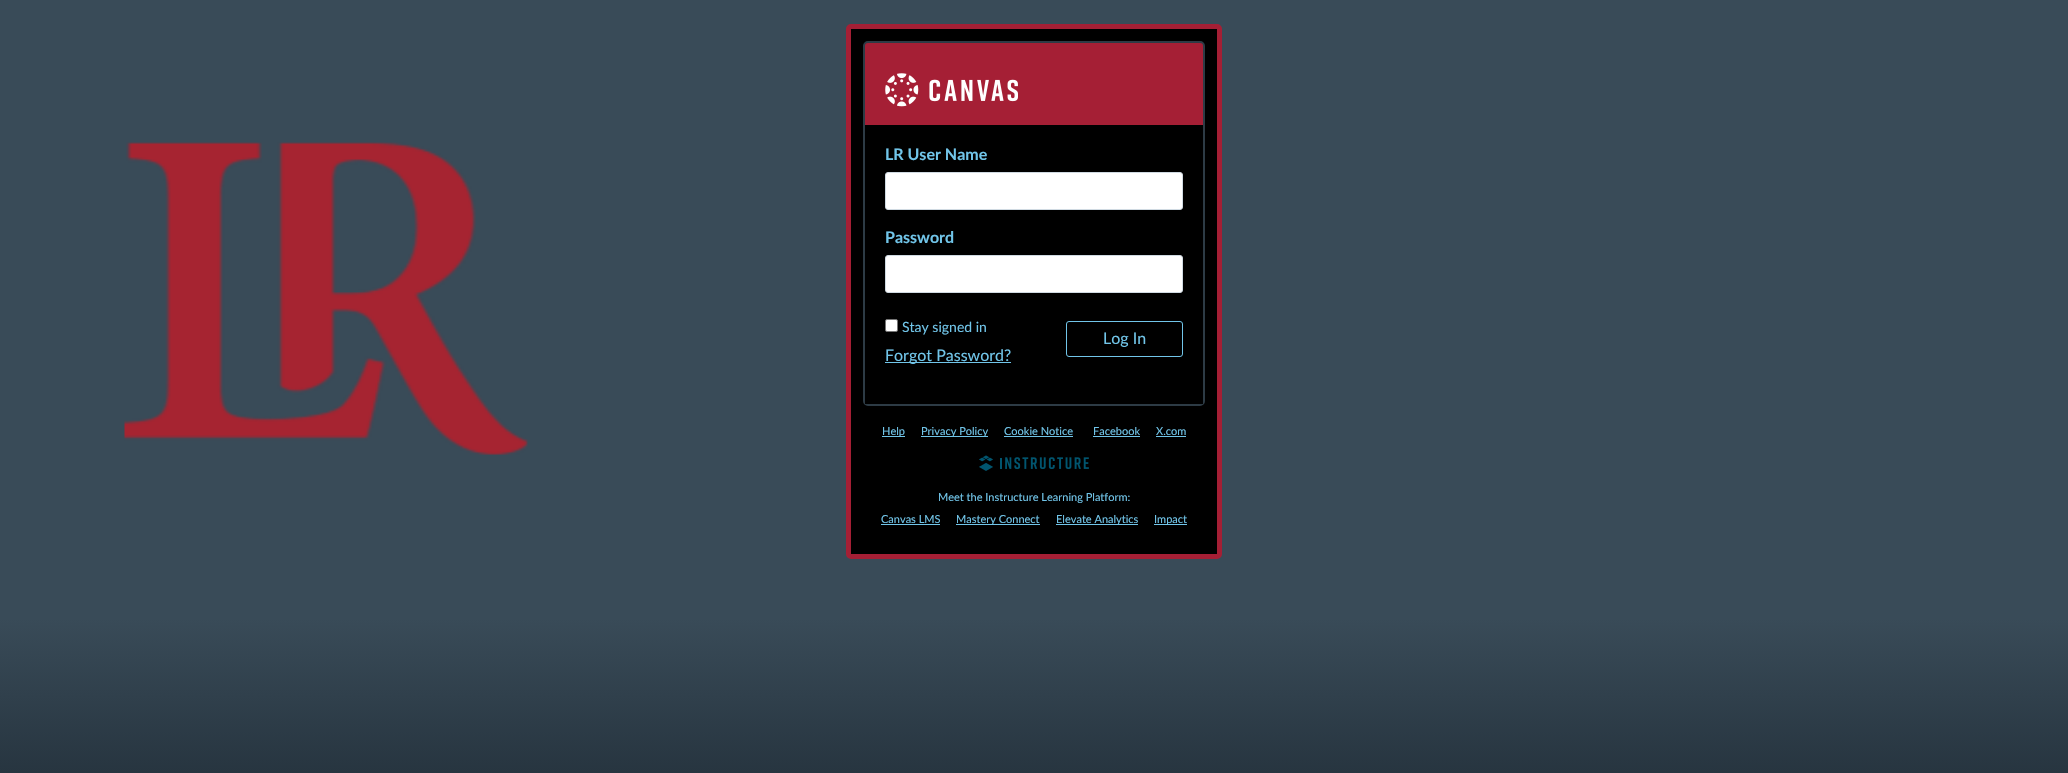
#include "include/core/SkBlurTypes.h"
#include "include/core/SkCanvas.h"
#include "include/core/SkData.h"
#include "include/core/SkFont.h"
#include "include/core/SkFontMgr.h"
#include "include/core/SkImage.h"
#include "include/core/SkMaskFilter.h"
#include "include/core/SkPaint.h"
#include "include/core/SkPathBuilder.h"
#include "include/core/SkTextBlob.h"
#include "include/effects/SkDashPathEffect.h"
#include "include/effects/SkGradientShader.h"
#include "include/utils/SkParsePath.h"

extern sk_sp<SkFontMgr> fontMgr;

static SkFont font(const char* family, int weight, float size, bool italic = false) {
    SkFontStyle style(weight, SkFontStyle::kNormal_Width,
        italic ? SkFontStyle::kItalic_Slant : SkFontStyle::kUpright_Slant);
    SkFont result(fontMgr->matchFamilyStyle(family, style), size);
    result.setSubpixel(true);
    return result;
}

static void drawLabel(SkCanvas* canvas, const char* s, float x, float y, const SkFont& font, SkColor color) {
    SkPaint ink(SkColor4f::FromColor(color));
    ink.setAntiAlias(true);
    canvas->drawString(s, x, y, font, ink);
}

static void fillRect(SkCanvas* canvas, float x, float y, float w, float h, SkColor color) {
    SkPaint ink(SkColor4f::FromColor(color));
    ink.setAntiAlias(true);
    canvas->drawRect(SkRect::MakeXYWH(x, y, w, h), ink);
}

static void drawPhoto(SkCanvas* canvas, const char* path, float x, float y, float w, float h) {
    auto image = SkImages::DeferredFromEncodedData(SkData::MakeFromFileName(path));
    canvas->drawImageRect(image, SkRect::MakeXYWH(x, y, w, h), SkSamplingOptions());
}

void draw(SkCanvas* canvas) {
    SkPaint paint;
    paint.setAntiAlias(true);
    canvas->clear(0xFFFFFFFF);
    drawPhoto(canvas, "assets/img1.png", 0, 0, 2068, 773);
    paint.setColor(0xFF000000);
    canvas->drawRoundRect(SkRect::MakeXYWH(848.5f, 26.5f, 371, 530), 2.5f, 2.5f, paint);
    paint.setStroke(true);
    paint.setStrokeWidth(5);
    paint.setColor(0xFFA51F35);
    canvas->drawRoundRect(SkRect::MakeXYWH(848.5f, 26.5f, 371, 530), 2.5f, 2.5f, paint);
    paint.setStroke(false);
    canvas->drawRoundRect(SkRect::MakeXYWH(864, 42, 340, 363), 4, 4, paint);
    paint.setStroke(true);
    paint.setStrokeWidth(2);
    paint.setColor(0xFF2D3B45);
    canvas->drawRoundRect(SkRect::MakeXYWH(864, 42, 340, 363), 4, 4, paint);
    drawPhoto(canvas, "assets/img2.png", 885, 73, 133, 34);
    fillRect(canvas, 865, 125, 338, 279, 0xFF000000);
    SkFont font1 = font("Lato", 700, 16);
    drawLabel(canvas, "LR User Name", 885, 160, font1, 0xFF71C5E9);
    paint.setStroke(false);
    paint.setColor(0xFFFFFFFF);
    canvas->drawRoundRect(SkRect::MakeXYWH(885.5f, 172.5f, 297, 37), 2.5f, 2.5f, paint);
    paint.setStroke(true);
    paint.setStrokeWidth(1);
    paint.setColor(0xFFD0DAE2);
    canvas->drawRoundRect(SkRect::MakeXYWH(885.5f, 172.5f, 297, 37), 2.5f, 2.5f, paint);
    drawLabel(canvas, "Password", 885, 243, font1, 0xFF71C5E9);
    paint.setStroke(false);
    paint.setColor(0xFFFFFFFF);
    canvas->drawRoundRect(SkRect::MakeXYWH(885.5f, 255.5f, 297, 37), 2.5f, 2.5f, paint);
    paint.setStroke(true);
    paint.setColor(0xFFD0DAE2);
    canvas->drawRoundRect(SkRect::MakeXYWH(885.5f, 255.5f, 297, 37), 2.5f, 2.5f, paint);
    paint.setStroke(false);
    paint.setColor(0xFFFFFFFF);
    canvas->drawRoundRect(SkRect::MakeXYWH(885.5f, 319.5f, 12, 12), 1.5f, 1.5f, paint);
    paint.setStroke(true);
    paint.setColor(0xFF767676);
    canvas->drawRoundRect(SkRect::MakeXYWH(885.5f, 319.5f, 12, 12), 1.5f, 1.5f, paint);
    SkFont font2 = font("Lato", 400, 14);
    drawLabel(canvas, "Stay signed in", 902, 332, font2, 0xFF71C5E9);
    fillRect(canvas, 885, 362, 126, 1, 0xFF71C5E9);
    SkFont font3 = font("Lato", 400, 16);
    drawLabel(canvas, "Forgot Password?", 885, 361, font3, 0xFF71C5E9);
    paint.setColor(0xFF71C5E9);
    canvas->drawRoundRect(SkRect::MakeXYWH(1066.5f, 321.5f, 116, 35), 2.5f, 2.5f, paint);
    drawLabel(canvas, "Log In", 1103, 344, font3, 0xFF71C5E9);
    fillRect(canvas, 882, 436, 23, 1, 0xFF71C5E9);
    SkFont font4 = font("Lato", 400, 11);
    drawLabel(canvas, "Help", 882, 435, font4, 0xFF71C5E9);
    fillRect(canvas, 921, 436, 67, 1, 0xFF71C5E9);
    drawLabel(canvas, "Privacy Policy", 921, 435, font4, 0xFF71C5E9);
    drawLabel(canvas, "Cookie Notice", 1004, 435, font4, 0xFF71C5E9);
    fillRect(canvas, 1004, 436, 69, 1, 0xFF71C5E9);
    drawLabel(canvas, "Facebook", 1093, 435, font4, 0xFF71C5E9);
    fillRect(canvas, 1093, 436, 47, 1, 0xFF71C5E9);
    drawLabel(canvas, "X.com", 1156, 435, font4, 0xFF71C5E9);
    fillRect(canvas, 1156, 436, 30, 1, 0xFF71C5E9);
    drawPhoto(canvas, "assets/img3.png", 979, 455, 110, 16);
    drawLabel(canvas, "Meet the Instructure Learning Platform:", 938, 501, font4, 0xFF71C5E9);
    drawLabel(canvas, "Canvas LMS", 881, 523, font4, 0xFF71C5E9);
    fillRect(canvas, 881, 524, 59, 1, 0xFF71C5E9);
    fillRect(canvas, 956, 524, 84, 1, 0xFF71C5E9);
    drawLabel(canvas, "Mastery Connect", 956, 523, font4, 0xFF71C5E9);
    fillRect(canvas, 1056, 524, 82, 1, 0xFF71C5E9);
    drawLabel(canvas, "Elevate Analytics", 1056, 523, font4, 0xFF71C5E9);
    fillRect(canvas, 1154, 524, 33, 1, 0xFF71C5E9);
    drawLabel(canvas, "Impact", 1154, 523, font4, 0xFF71C5E9);
}
